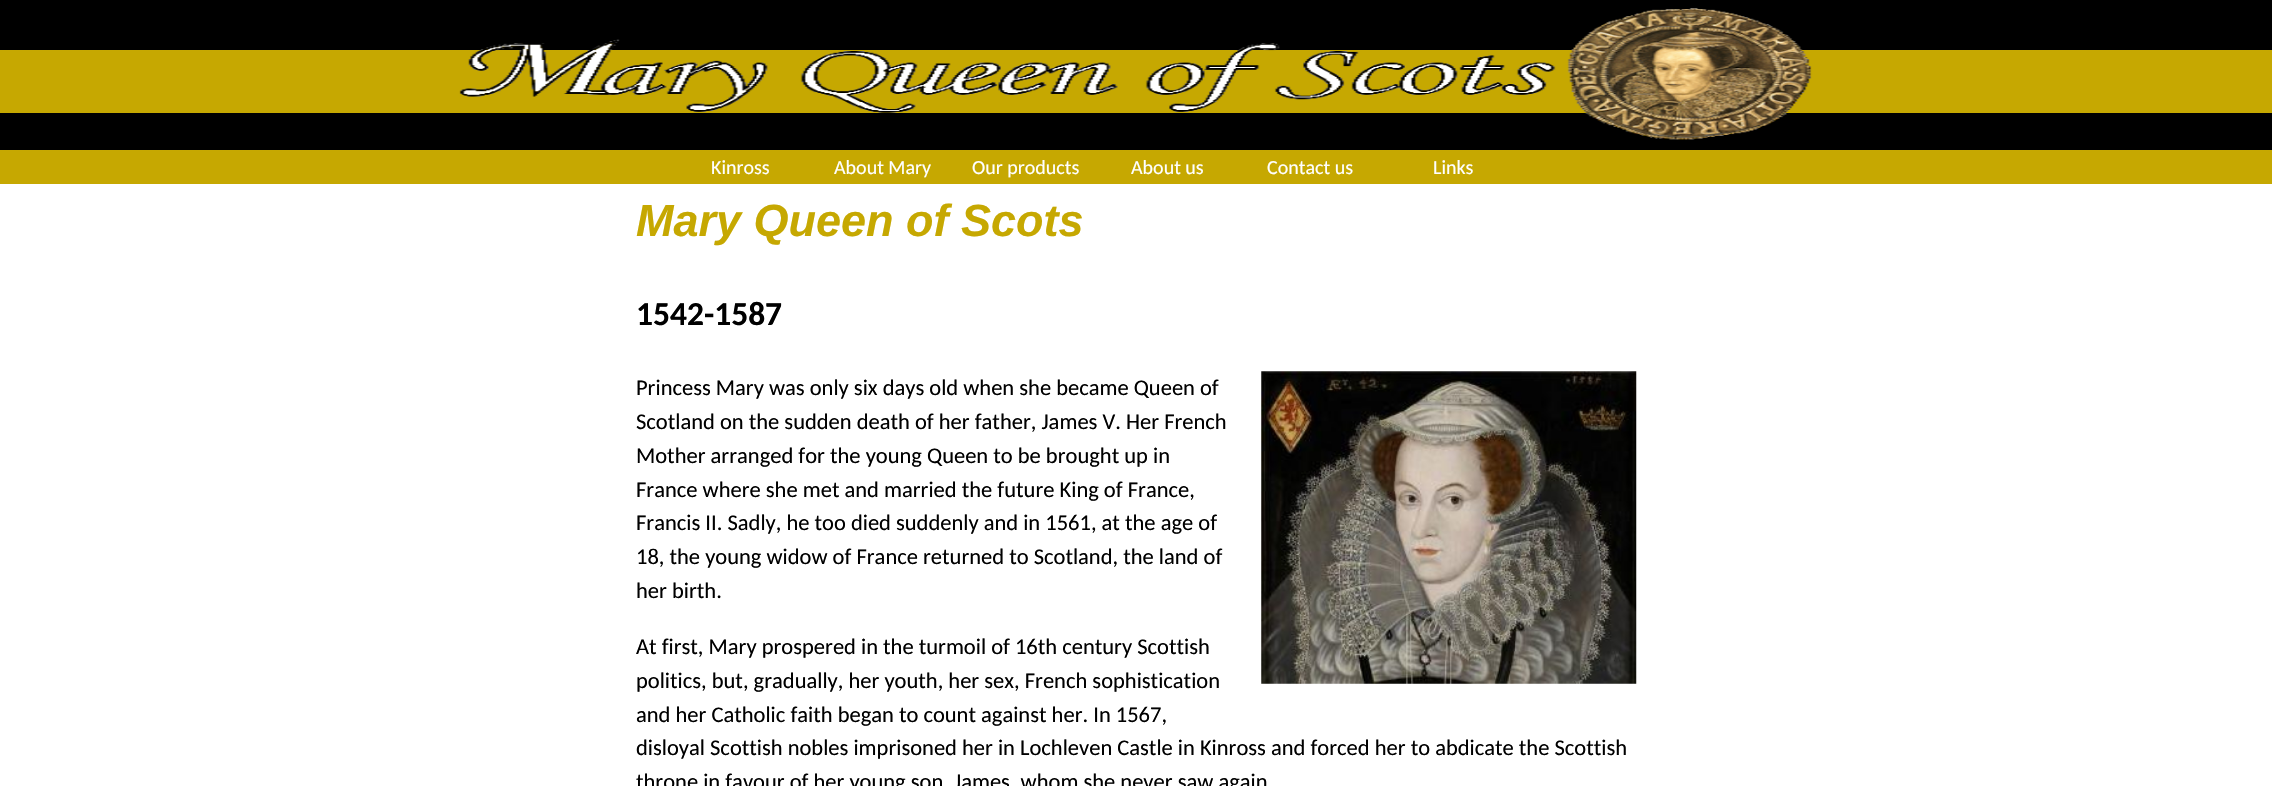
#include "include/core/SkBlurTypes.h"
#include "include/core/SkCanvas.h"
#include "include/core/SkData.h"
#include "include/core/SkFont.h"
#include "include/core/SkFontMgr.h"
#include "include/core/SkImage.h"
#include "include/core/SkMaskFilter.h"
#include "include/core/SkPaint.h"
#include "include/core/SkPathBuilder.h"
#include "include/core/SkTextBlob.h"
#include "include/effects/SkDashPathEffect.h"
#include "include/effects/SkGradientShader.h"
#include "include/utils/SkParsePath.h"

extern sk_sp<SkFontMgr> fontMgr;

static SkFont font(const char* family, int weight, float size, bool italic = false) {
    SkFontStyle style(weight, SkFontStyle::kNormal_Width,
        italic ? SkFontStyle::kItalic_Slant : SkFontStyle::kUpright_Slant);
    SkFont result(fontMgr->matchFamilyStyle(family, style), size);
    result.setSubpixel(true);
    return result;
}

static void drawLabel(SkCanvas* canvas, const char* s, float x, float y, const SkFont& font, SkColor color) {
    SkPaint ink(SkColor4f::FromColor(color));
    ink.setAntiAlias(true);
    canvas->drawString(s, x, y, font, ink);
}

static void fillRect(SkCanvas* canvas, float x, float y, float w, float h, SkColor color) {
    SkPaint ink(SkColor4f::FromColor(color));
    ink.setAntiAlias(true);
    canvas->drawRect(SkRect::MakeXYWH(x, y, w, h), ink);
}

static void drawPhoto(SkCanvas* canvas, const char* path, float x, float y, float w, float h) {
    auto image = SkImages::DeferredFromEncodedData(SkData::MakeFromFileName(path));
    canvas->drawImageRect(image, SkRect::MakeXYWH(x, y, w, h), SkSamplingOptions());
}

void draw(SkCanvas* canvas) {
    SkPaint paint;
    paint.setAntiAlias(true);
    canvas->clear(0xFFFFFFFF);
    fillRect(canvas, 0, 0, 2272, 150, 0xFF000000);
    fillRect(canvas, 0, 50, 2272, 63, 0xFFC6A801);
    drawPhoto(canvas, "assets/img1.png", 459, 8, 1353, 132);
    fillRect(canvas, 0, 150, 2272, 34, 0xFFC6A801);
    SkFont font1 = font("Carlito", 400, 20);
    drawLabel(canvas, "Kinross", 711, 174, font1, 0xFFFFFFFF);
    drawLabel(canvas, "About Mary", 834, 174, font1, 0xFFFFFFFF);
    drawLabel(canvas, "Our products", 972, 174, font1, 0xFFFFFFFF);
    drawLabel(canvas, "About us", 1131, 174, font1, 0xFFFFFFFF);
    drawLabel(canvas, "Contact us", 1267, 174, font1, 0xFFFFFFFF);
    drawLabel(canvas, "Links", 1433, 174, font1, 0xFFFFFFFF);
    SkFont font2 = font("Liberation Sans", 700, 45, true);
    drawLabel(canvas, "Mary Queen of Scots", 636, 236, font2, 0xFFC6A801);
    SkFont font3 = font("Carlito", 700, 33.5f);
    drawLabel(canvas, "1542-1587", 636, 325, font3, 0xFF000000);
    SkFont font4 = font("Carlito", 400, 22.5f);
    drawLabel(canvas, "Princess Mary was only six days old when she became Queen of", 636, 395, font4, 0xFF000000);
    drawLabel(canvas, "Scotland on the sudden death of her father, James V. Her French", 636, 429, font4, 0xFF000000);
    drawLabel(canvas, "Mother arranged for the young Queen to be brought up in", 636, 463, font4, 0xFF000000);
    drawLabel(canvas, "France where she met and married the future King of France,", 636, 497, font4, 0xFF000000);
    drawLabel(canvas, "Francis II. Sadly, he too died suddenly and in 1561, at the age of", 636, 530, font4, 0xFF000000);
    drawLabel(canvas, "18, the young widow of France returned to Scotland, the land of", 636, 564, font4, 0xFF000000);
    drawLabel(canvas, "her birth.", 636, 598, font4, 0xFF000000);
    drawPhoto(canvas, "assets/img2.png", 1261, 371, 376, 313);
    drawLabel(canvas, "At first, Mary prospered in the turmoil of 16th century Scottish", 636, 654, font4, 0xFF000000);
    drawLabel(canvas, "politics, but, gradually, her youth, her sex, French sophistication", 636, 688, font4, 0xFF000000);
    drawLabel(canvas, "and her Catholic faith began to count against her. In 1567,", 636, 722, font4, 0xFF000000);
    drawLabel(canvas, "disloyal Scottish nobles imprisoned her in Lochleven Castle in Kinross and forced her to abdicate the Scottish", 636, 755, font4, 0xFF000000);
    drawLabel(canvas, "throne in favour of her young son, James, whom she never saw again", 636, 789, font4, 0xFF000000);
}
